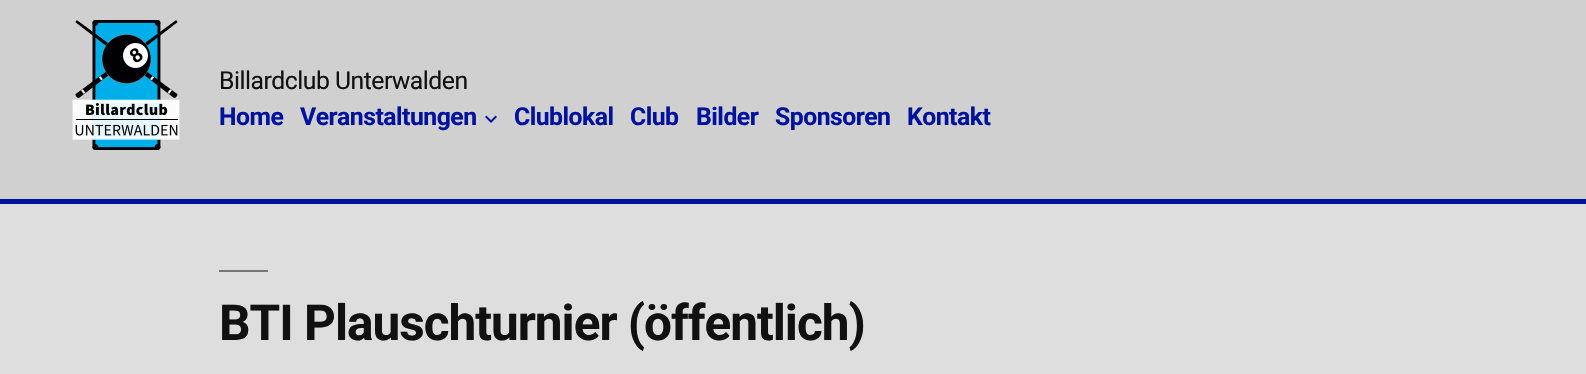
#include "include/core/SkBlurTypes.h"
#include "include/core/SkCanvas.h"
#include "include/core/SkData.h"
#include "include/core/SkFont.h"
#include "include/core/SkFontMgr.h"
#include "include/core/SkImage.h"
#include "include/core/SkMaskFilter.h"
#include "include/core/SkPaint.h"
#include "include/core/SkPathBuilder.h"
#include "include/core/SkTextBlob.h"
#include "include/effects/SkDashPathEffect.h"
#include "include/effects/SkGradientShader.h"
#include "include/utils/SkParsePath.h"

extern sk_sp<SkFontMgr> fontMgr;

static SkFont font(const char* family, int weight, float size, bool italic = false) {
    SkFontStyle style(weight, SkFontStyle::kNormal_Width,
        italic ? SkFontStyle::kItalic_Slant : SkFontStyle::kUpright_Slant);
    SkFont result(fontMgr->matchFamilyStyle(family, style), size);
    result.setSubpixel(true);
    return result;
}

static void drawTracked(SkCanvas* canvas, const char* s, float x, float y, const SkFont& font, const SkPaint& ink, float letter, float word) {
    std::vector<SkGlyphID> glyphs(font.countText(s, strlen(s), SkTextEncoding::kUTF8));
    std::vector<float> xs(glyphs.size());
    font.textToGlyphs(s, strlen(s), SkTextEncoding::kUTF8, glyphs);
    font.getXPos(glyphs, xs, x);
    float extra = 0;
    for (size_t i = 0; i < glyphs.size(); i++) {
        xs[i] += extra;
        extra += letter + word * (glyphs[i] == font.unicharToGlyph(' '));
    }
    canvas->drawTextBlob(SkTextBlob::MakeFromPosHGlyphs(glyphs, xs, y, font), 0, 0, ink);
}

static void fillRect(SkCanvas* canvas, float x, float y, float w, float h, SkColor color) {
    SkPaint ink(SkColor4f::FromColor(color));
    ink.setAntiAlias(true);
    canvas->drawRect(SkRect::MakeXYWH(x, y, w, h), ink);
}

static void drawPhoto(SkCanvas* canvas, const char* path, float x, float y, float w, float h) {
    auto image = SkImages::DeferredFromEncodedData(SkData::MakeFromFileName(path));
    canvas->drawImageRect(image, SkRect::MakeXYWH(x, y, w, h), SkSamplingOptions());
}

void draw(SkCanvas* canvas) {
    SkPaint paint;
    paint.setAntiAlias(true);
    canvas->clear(0xFFDEDEDE);
    fillRect(canvas, 0, 0, 1586, 199, 0xFFD0D0D0);
    fillRect(canvas, 0, 199, 1586, 5, 0xFF00119E);
    drawPhoto(canvas, "assets/img1.png", 72, 20, 108, 130);
    SkFont font1 = font("Roboto", 400, 24.75f);
    paint.setColor(0xFF111111);
    drawTracked(canvas, "Billardclub Unterwalden", 219, 89, font1, paint, -0.5f, 0);
    SkFont font2 = font("Roboto", 700, 24.75f);
    paint.setColor(0xFF00119E);
    drawTracked(canvas, "Home", 219, 125, font2, paint, -0.5f, 0);
    drawTracked(canvas, "Veranstaltungen", 300, 125, font2, paint, -0.5f, 0);
    drawPhoto(canvas, "assets/img2.png", 485, 115, 12, 8);
    drawTracked(canvas, "Clublokal", 514, 125, font2, paint, -0.5f, 0);
    drawTracked(canvas, "Club", 630, 125, font2, paint, -0.5f, 0);
    drawTracked(canvas, "Bilder", 696, 125, font2, paint, -0.5f, 0);
    drawTracked(canvas, "Sponsoren", 775, 125, font2, paint, -0.5f, 0);
    drawTracked(canvas, "Kontakt", 907, 125, font2, paint, -0.5f, 0);
    fillRect(canvas, 219, 270, 49, 2, 0xFF767676);
    SkFont font3 = font("Roboto", 700, 49.5f);
    paint.setColor(0xFF111111);
    drawTracked(canvas, "BTI Plauschturnier (öffentlich)", 219, 340, font3, paint, -1, 0);
}
